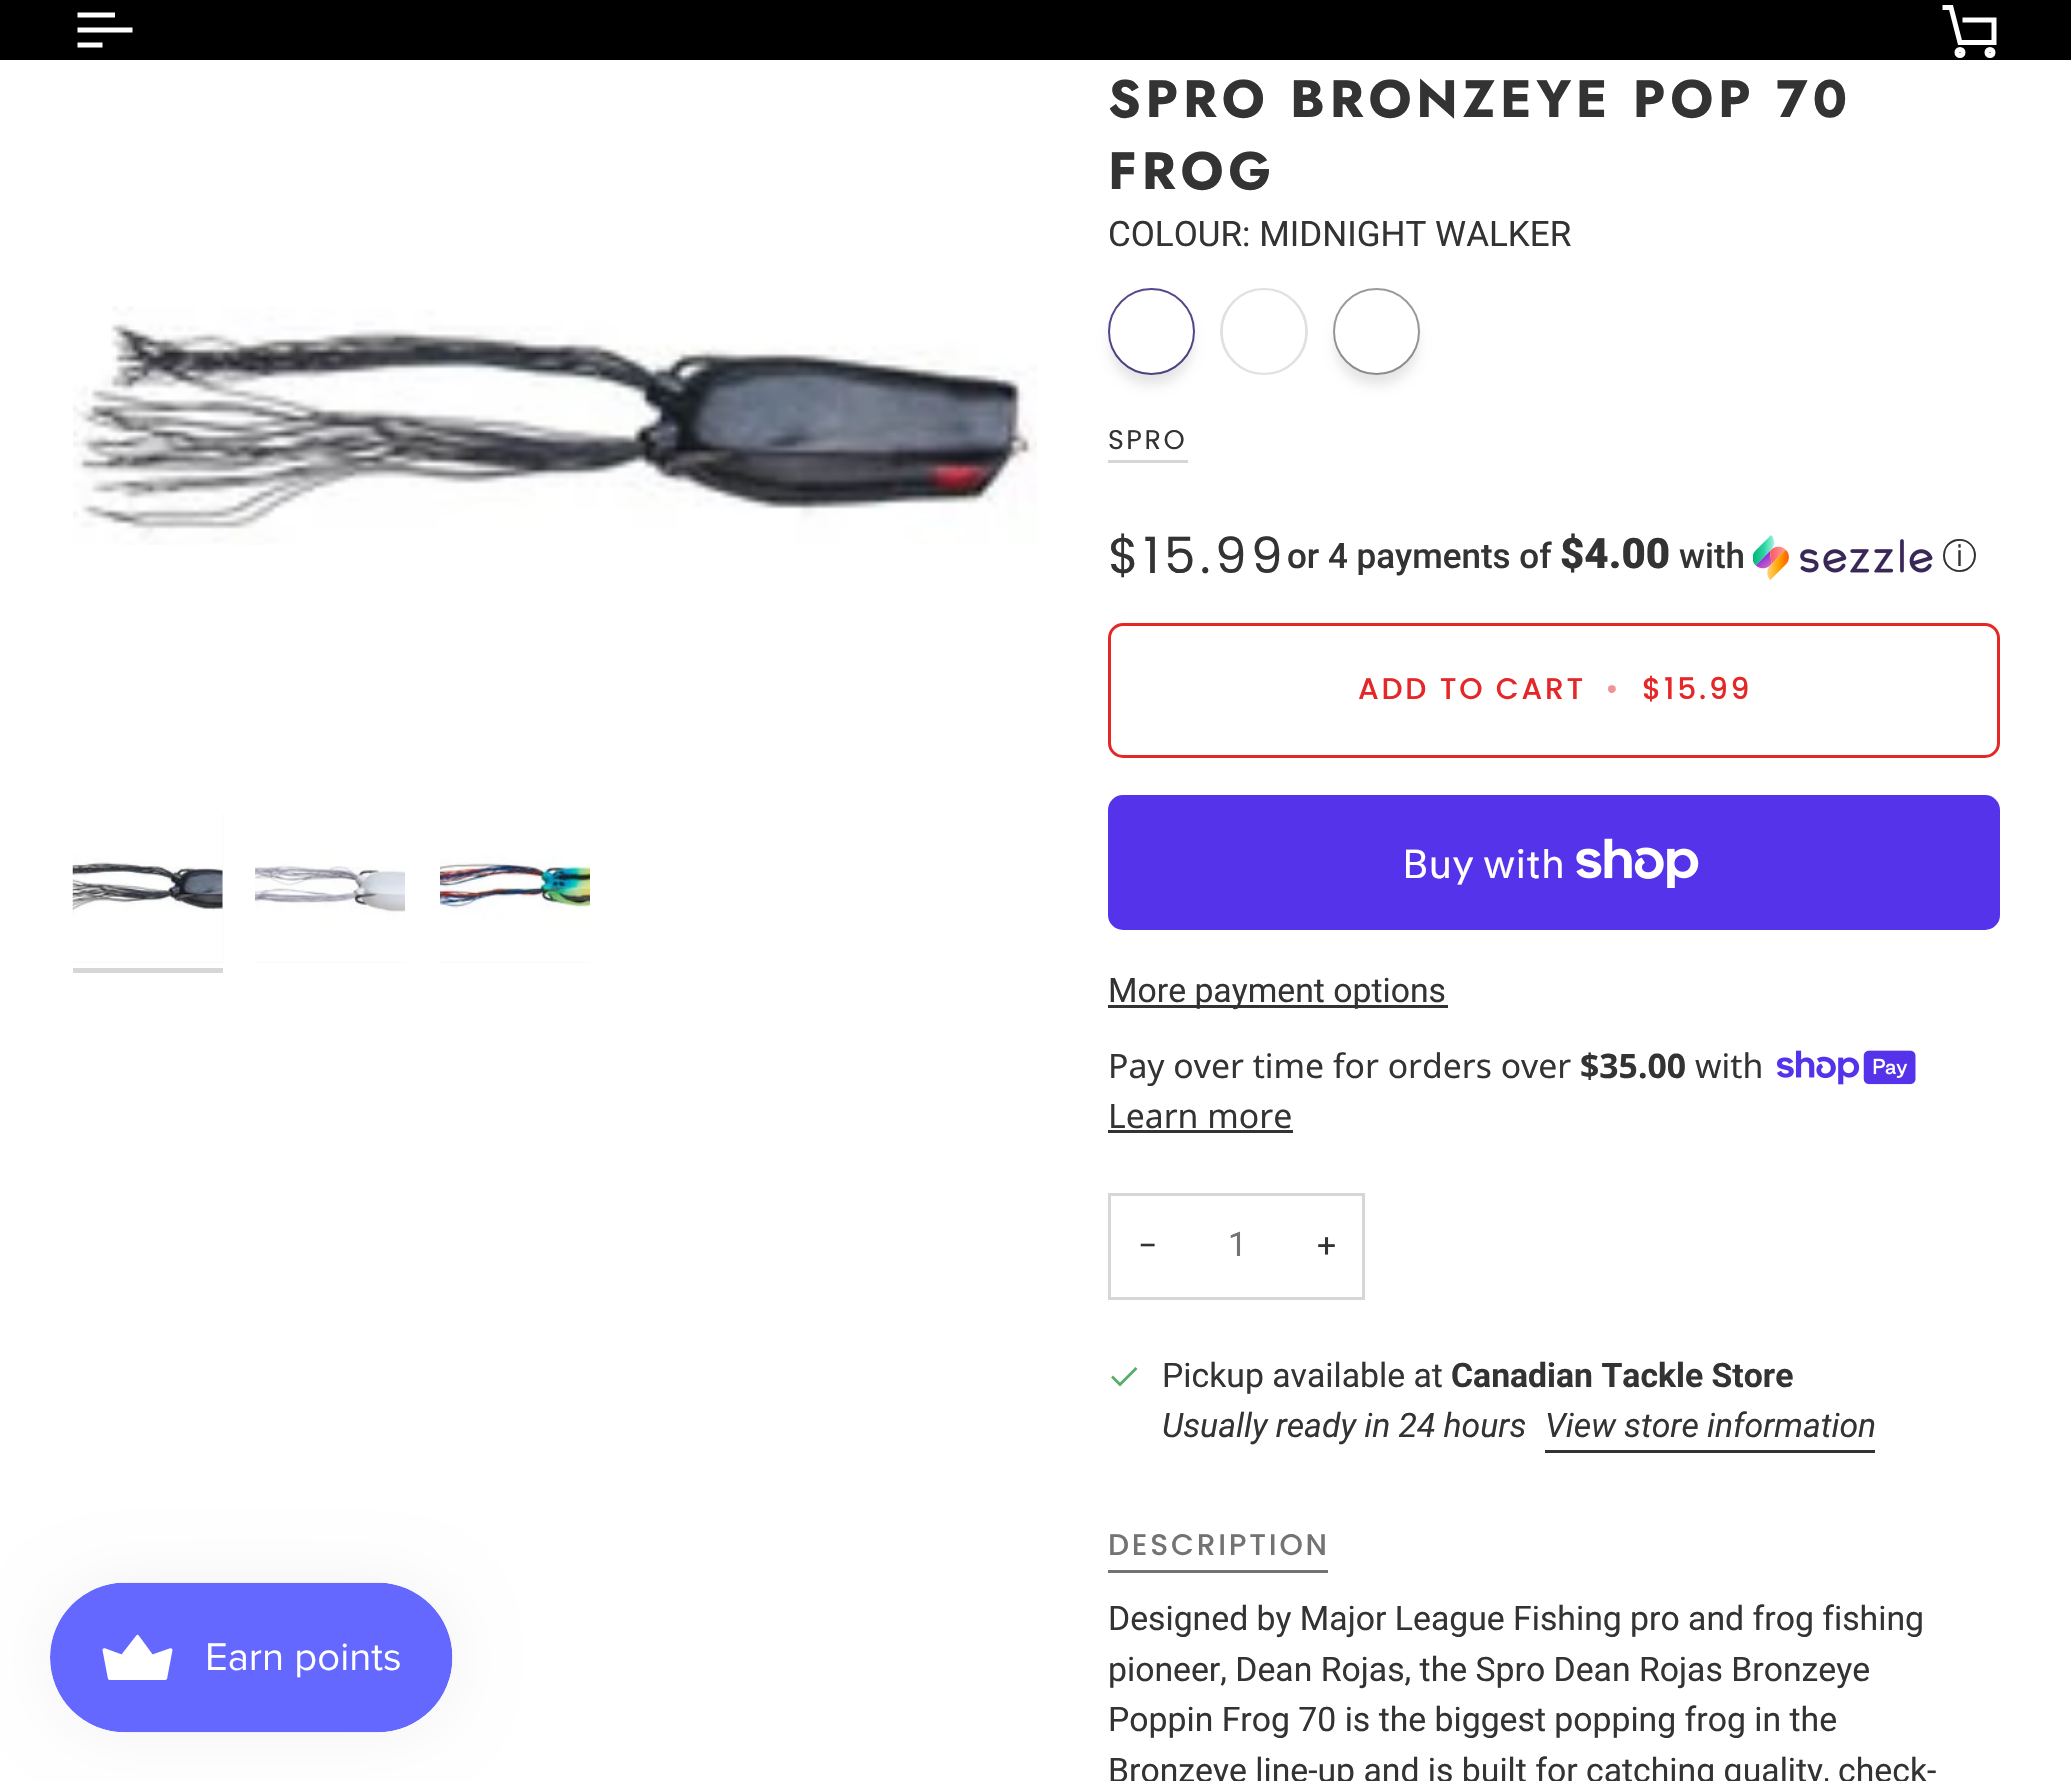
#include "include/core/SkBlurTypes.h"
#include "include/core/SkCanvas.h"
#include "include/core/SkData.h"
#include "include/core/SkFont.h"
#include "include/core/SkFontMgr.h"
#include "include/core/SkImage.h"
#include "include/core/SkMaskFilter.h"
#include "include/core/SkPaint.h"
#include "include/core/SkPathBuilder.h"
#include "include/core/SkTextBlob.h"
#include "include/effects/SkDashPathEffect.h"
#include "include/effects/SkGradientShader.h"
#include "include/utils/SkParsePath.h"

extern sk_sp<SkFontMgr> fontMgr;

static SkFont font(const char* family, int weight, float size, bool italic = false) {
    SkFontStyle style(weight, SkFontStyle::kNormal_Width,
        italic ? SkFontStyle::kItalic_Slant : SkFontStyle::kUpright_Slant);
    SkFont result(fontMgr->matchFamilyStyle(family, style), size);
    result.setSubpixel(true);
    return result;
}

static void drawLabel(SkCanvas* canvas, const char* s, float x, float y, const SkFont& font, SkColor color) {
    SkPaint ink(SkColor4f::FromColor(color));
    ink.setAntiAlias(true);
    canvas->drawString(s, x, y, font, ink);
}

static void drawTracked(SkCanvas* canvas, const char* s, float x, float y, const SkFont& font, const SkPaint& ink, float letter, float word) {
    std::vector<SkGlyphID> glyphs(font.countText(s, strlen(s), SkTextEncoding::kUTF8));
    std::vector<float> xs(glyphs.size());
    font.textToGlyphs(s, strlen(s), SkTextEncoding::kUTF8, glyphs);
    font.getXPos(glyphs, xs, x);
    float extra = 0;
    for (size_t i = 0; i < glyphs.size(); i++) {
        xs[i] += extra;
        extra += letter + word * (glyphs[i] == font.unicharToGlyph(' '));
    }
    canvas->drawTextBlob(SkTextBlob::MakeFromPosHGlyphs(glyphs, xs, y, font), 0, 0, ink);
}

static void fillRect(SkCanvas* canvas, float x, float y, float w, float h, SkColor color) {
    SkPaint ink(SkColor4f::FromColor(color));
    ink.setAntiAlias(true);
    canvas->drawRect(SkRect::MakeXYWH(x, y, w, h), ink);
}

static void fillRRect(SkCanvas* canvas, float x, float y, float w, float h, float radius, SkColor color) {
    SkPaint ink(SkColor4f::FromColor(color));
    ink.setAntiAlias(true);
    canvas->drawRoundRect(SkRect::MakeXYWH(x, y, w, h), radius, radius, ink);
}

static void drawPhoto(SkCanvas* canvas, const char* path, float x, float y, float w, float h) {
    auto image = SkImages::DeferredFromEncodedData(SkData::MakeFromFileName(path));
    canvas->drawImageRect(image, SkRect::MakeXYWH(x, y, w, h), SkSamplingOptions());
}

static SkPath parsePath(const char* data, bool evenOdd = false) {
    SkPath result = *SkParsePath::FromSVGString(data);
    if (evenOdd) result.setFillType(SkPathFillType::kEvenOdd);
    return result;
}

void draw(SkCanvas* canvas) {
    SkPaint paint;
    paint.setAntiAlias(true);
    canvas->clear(0xFFFFFFFF);
    fillRect(canvas, 0, 0, 2071, 60, 0xFF000000);
    paint.setStroke(true);
    paint.setStrokeWidth(5);
    paint.setStrokeCap(SkPaint::kSquare_Cap);
    paint.setColor(0xFFFFFFFF);
    canvas->drawPath(parsePath("M112.5 15H80M130 30H80M100 45H80"), paint);
    paint.setStrokeCap(SkPaint::kButt_Cap);
    canvas->drawPath(parsePath("M1942.5 7.5H1951L1960 42.5H1994V20H1962.5"), paint);
    canvas->drawCircle(1960, 52.5f, 3, paint);
    canvas->drawCircle(1990, 52.5f, 3, paint);
    paint.setStroke(false);
    paint.setColor(0x0D000000);
    paint.setMaskFilter(SkMaskFilter::MakeBlur(kNormal_SkBlurStyle, 31));
    canvas->drawRoundRect(SkRect::MakeXYWH(50, 1583, 403, 150), 75, 75, paint);
    paint.setMaskFilter(nullptr);
    drawPhoto(canvas, "assets/img1.png", 50, 1582, 403, 151);
    drawPhoto(canvas, "assets/img2.png", 73, 306, 964, 239);
    fillRect(canvas, 73, 813, 150, 150, 0xFFF5F5F5);
    drawPhoto(canvas, "assets/img3.png", 72, 813, 151, 150);
    fillRect(canvas, 73, 968, 150, 5, 0xFFD6D6D6);
    fillRect(canvas, 255, 962, 150, 1, 0xFFF5F5F5);
    drawPhoto(canvas, "assets/img4.png", 255, 813, 150, 150);
    fillRect(canvas, 440, 962, 150, 1, 0xFFF5F5F5);
    drawPhoto(canvas, "assets/img5.png", 440, 813, 150, 150);
    SkFont font1 = font("Jost", 700, 52.5f);
    paint.setColor(0xFF333333);
    drawTracked(canvas, "SPRO BRONZEYE POP 70", 1108, 117, font1, paint, 4.75f, 0);
    drawTracked(canvas, "FROG", 1108, 189, font1, paint, 4.75f, 0);
    SkFont font2 = font("Roboto", 400, 35);
    drawLabel(canvas, "COLOUR: MIDNIGHT WALKER", 1108, 246, font2, 0xFF333333);
    paint.setStroke(true);
    paint.setStrokeWidth(3);
    paint.setColor(0xFF58468C);
    canvas->drawCircle(1151.5f, 331.5f, 42, paint);
    canvas->save();
    canvas->clipPath(parsePath("M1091 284H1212V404H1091ZM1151.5 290C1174.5 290 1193 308.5 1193 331.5C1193 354.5 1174.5 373 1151.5 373C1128.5 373 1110 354.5 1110 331.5C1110 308.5 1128.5 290 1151.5 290Z", true), true);
    paint.setStroke(false);
    paint.setColor(0x1A000000);
    paint.setMaskFilter(SkMaskFilter::MakeBlur(kNormal_SkBlurStyle, 6));
    canvas->drawRoundRect(SkRect::MakeXYWH(1110, 303, 83, 82), 41, 41, paint);
    paint.setMaskFilter(nullptr);
    canvas->restore();
    paint.setStroke(true);
    paint.setStrokeWidth(8);
    paint.setColor(0xFFFFFFFF);
    canvas->drawCircle(1151.5f, 331.5f, 37.5f, paint);
    paint.setStrokeWidth(3);
    paint.setColor(0xFFE1E1E1);
    canvas->drawRoundRect(SkRect::MakeXYWH(1221.5f, 289.5f, 85, 84), 42, 42, paint);
    paint.setStrokeWidth(8);
    paint.setColor(0xFFFFFFFF);
    canvas->drawRoundRect(SkRect::MakeXYWH(1227, 294, 74, 75), 37, 37, paint);
    paint.setStrokeWidth(3);
    paint.setColor(0xFF9B9B9B);
    canvas->drawCircle(1376.5f, 331.5f, 42, paint);
    canvas->save();
    canvas->clipPath(parsePath("M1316 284H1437V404H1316ZM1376.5 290C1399.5 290 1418 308.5 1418 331.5C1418 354.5 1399.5 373 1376.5 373C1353.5 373 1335 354.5 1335 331.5C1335 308.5 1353.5 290 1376.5 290Z", true), true);
    paint.setStroke(false);
    paint.setColor(0x1A000000);
    paint.setMaskFilter(SkMaskFilter::MakeBlur(kNormal_SkBlurStyle, 6));
    canvas->drawRoundRect(SkRect::MakeXYWH(1335, 303, 83, 82), 41, 41, paint);
    paint.setMaskFilter(nullptr);
    canvas->restore();
    paint.setStroke(true);
    paint.setStrokeWidth(8);
    paint.setColor(0xFFFFFFFF);
    canvas->drawCircle(1376.5f, 331.5f, 37.5f, paint);
    SkFont font3 = font("Poppins", 400, 27);
    paint.setStroke(false);
    paint.setColor(0xFF333333);
    drawTracked(canvas, "SPRO", 1108, 449, font3, paint, 2.5f, 0);
    fillRect(canvas, 1108, 460, 80, 3, 0xFFD6D6D6);
    SkFont font4 = font("Poppins", 400, 50);
    drawTracked(canvas, "$15.99", 1108, 573, font4, paint, 4.5f, 0);
    SkFont font5 = font("Roboto", 500, 35);
    drawLabel(canvas, "or 4 payments of", 1287, 568, font5, 0xFF333333);
    SkFont font6 = font("Roboto", 900, 42);
    drawLabel(canvas, "$4.00", 1560, 568, font6, 0xFF333333);
    drawLabel(canvas, "with", 1679, 568, font5, 0xFF333333);
    drawPhoto(canvas, "assets/img6.png", 1753, 535, 180, 45);
    SkFont font7 = font("WenQuanYi Zen Hei", 500, 35);
    drawLabel(canvas, "ⓘ", 1942, 568, font7, 0xFF333333);
    paint.setStroke(true);
    paint.setStrokeWidth(3);
    paint.setColor(0xFFE52727);
    canvas->drawRoundRect(SkRect::MakeXYWH(1109.5f, 624.5f, 889, 132), 13.5f, 13.5f, paint);
    SkFont font8 = font("Poppins", 500, 29.75f);
    paint.setStroke(false);
    drawTracked(canvas, "ADD TO CART", 1358, 699, font8, paint, 2.75f, 0);
    paint.setColor(0xFFF29393);
    drawTracked(canvas, "•", 1605, 699, font8, paint, 2.75f, 0);
    paint.setColor(0xFFE52727);
    drawTracked(canvas, "$15.99", 1642, 699, font8, paint, 2.75f, 0);
    fillRRect(canvas, 1108, 795, 892, 135, 15, 0xFF5433EB);
    SkFont font9 = font("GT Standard", 400, 40);
    drawLabel(canvas, "Buy with", 1402, 878, font9, 0xFFFFFFFF);
    drawPhoto(canvas, "assets/img7.png", 1576, 838, 123, 50);
    fillRect(canvas, 1108, 1005, 340, 3, 0xFF333333);
    SkFont font10 = font("Roboto", 400, 33.75f);
    drawLabel(canvas, "More payment options", 1108, 1002, font10, 0xFF333333);
    SkFont font11 = font("Noto Sans", 400, 33.75f);
    drawLabel(canvas, "Pay over time for orders over", 1108, 1078, font11, 0xFF333333);
    SkFont font12 = font("Noto Sans", 700, 33.75f);
    drawLabel(canvas, "$35.00", 1580, 1078, font12, 0xFF333333);
    drawLabel(canvas, "with", 1695, 1078, font11, 0xFF333333);
    drawPhoto(canvas, "assets/img8.png", 1776, 1050, 140, 35);
    drawLabel(canvas, "Learn more", 1108, 1128, font11, 0xFF333333);
    fillRect(canvas, 1108, 1130, 185, 3, 0xFF333333);
    paint.setStroke(true);
    paint.setColor(0xFFD6D6D6);
    canvas->drawRect(SkRect::MakeXYWH(1109.5f, 1194.5f, 254, 104), paint);
    drawLabel(canvas, "−", 1138, 1257, font10, 0xFF333333);
    drawLabel(canvas, "1", 1228, 1256, font10, 0xFF737373);
    drawLabel(canvas, "+", 1317, 1257, font10, 0xFF333333);
    paint.setStrokeWidth(2.8f);
    paint.setStrokeCap(SkPaint::kSquare_Cap);
    paint.setColor(0xFF56AD6A);
    canvas->drawPath(parsePath("M1135.5 1369L1120 1384.5L1113 1377.5"), paint);
    drawLabel(canvas, "Pickup available at", 1162, 1387, font10, 0xFF333333);
    SkFont font13 = font("Roboto", 700, 33.75f);
    drawLabel(canvas, "Canadian Tackle Store", 1451, 1387, font13, 0xFF333333);
    SkFont font14 = font("Roboto", 400, 33.75f, true);
    drawLabel(canvas, "Usually ready in 24 hours", 1162, 1437, font14, 0xFF333333);
    drawLabel(canvas, "View store information", 1545, 1437, font14, 0xFF333333);
    fillRect(canvas, 1545, 1450, 330, 3, 0xFF333333);
    fillRect(canvas, 1108, 1570, 220, 3, 0xFF737373);
    paint.setStroke(false);
    paint.setColor(0xFF737373);
    drawTracked(canvas, "DESCRIPTION", 1108, 1555, font8, paint, 2.75f, 0);
    drawLabel(canvas, "Designed by Major League Fishing pro and frog fishing", 1108, 1630, font10, 0xFF333333);
    drawLabel(canvas, "pioneer, Dean Rojas, the Spro Dean Rojas Bronzeye", 1108, 1681, font10, 0xFF333333);
    drawLabel(canvas, "Poppin Frog 70 is the biggest popping frog in the", 1108, 1731, font10, 0xFF333333);
    drawLabel(canvas, "Bronzeye line-up and is built for catching quality, check-", 1108, 1782, font10, 0xFF333333);
}
